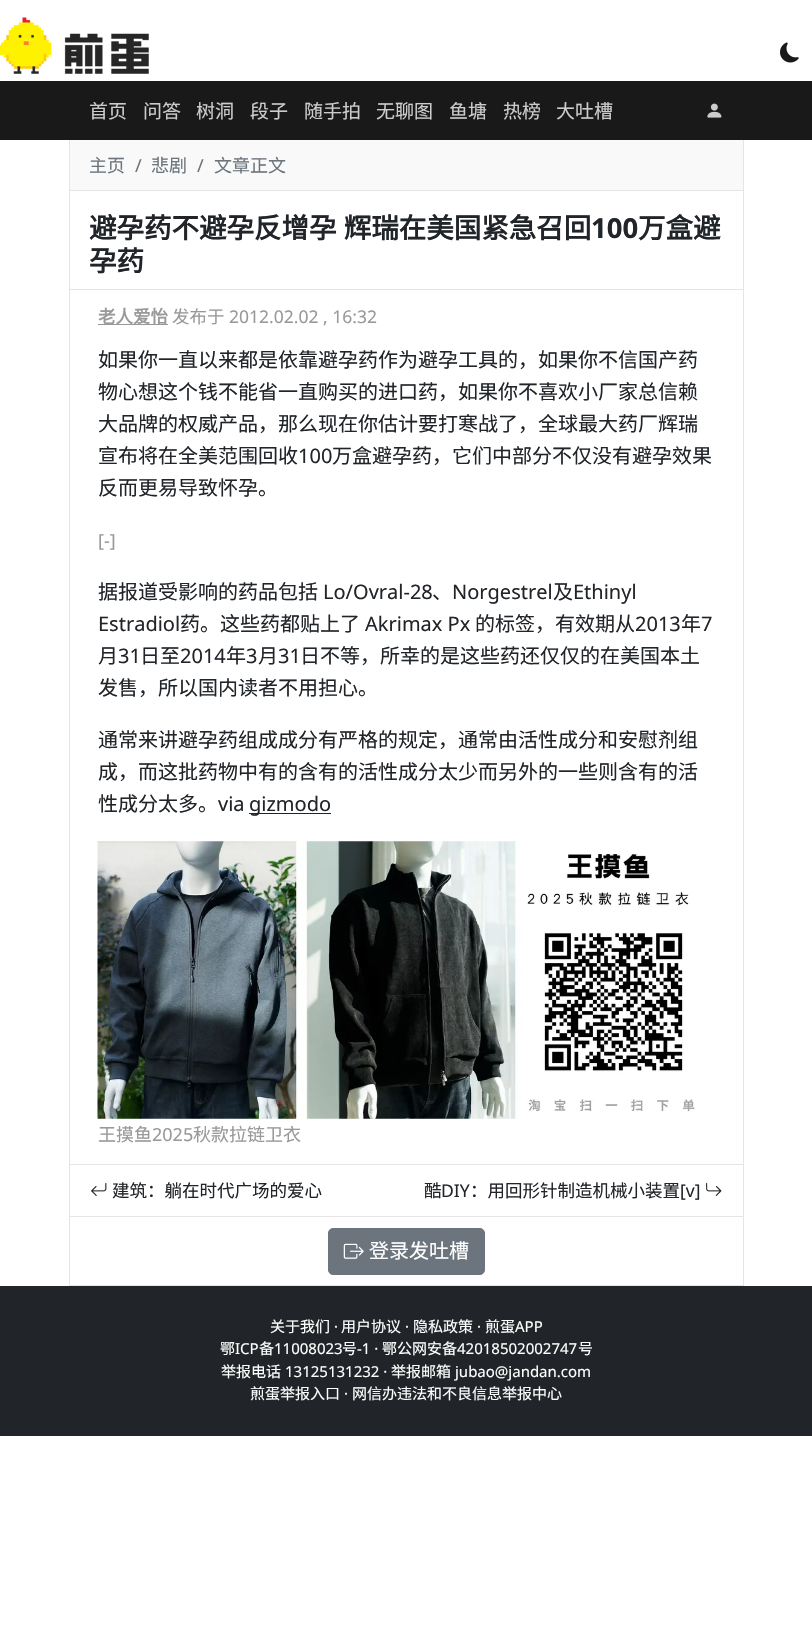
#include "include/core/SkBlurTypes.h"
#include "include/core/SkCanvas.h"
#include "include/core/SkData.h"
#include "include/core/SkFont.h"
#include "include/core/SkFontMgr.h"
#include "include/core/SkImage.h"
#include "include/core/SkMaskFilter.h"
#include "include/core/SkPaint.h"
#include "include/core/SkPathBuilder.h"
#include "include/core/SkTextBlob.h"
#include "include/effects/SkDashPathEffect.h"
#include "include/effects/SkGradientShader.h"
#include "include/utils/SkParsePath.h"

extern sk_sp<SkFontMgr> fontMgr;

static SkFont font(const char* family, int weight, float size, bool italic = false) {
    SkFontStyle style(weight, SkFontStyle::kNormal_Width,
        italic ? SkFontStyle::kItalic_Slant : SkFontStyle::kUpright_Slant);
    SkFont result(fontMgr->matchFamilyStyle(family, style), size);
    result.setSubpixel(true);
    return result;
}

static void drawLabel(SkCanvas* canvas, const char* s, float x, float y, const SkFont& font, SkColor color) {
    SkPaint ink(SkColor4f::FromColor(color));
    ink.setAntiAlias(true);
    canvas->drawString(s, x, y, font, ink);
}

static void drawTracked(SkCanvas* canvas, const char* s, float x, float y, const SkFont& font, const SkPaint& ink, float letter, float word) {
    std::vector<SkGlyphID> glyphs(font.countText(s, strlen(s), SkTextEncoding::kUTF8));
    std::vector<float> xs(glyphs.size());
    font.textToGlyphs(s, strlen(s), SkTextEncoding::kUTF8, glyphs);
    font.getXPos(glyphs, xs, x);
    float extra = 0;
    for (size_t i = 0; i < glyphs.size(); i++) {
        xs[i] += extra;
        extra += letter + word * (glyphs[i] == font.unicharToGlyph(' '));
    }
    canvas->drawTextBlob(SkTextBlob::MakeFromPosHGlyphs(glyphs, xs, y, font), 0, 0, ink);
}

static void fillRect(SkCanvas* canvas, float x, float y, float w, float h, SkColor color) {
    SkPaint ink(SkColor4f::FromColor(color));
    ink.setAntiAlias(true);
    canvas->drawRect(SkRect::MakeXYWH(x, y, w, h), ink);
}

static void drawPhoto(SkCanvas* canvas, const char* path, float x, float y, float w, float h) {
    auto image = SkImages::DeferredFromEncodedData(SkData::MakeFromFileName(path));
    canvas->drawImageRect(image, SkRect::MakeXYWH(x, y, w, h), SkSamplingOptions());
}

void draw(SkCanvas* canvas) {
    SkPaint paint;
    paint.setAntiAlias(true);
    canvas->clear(0xFFFFFFFF);
    drawPhoto(canvas, "assets/img1.png", 0, 17, 149, 57);
    drawPhoto(canvas, "assets/img2.png", 780, 42, 19, 21);
    fillRect(canvas, 0, 81, 812, 59, 0xFF191919);
    SkFont font1 = font("Noto Sans CJK SC", 400, 19);
    drawLabel(canvas, "首页", 89, 118, font1, 0xFFCCCCCC);
    drawLabel(canvas, "问答", 143, 118, font1, 0xFFCCCCCC);
    drawLabel(canvas, "树洞", 196, 118, font1, 0xFFCCCCCC);
    drawLabel(canvas, "段子", 250, 118, font1, 0xFFCCCCCC);
    drawLabel(canvas, "随手拍", 304, 118, font1, 0xFFCCCCCC);
    drawLabel(canvas, "无聊图", 376, 118, font1, 0xFFCCCCCC);
    drawLabel(canvas, "鱼塘", 449, 118, font1, 0xFFCCCCCC);
    drawLabel(canvas, "热榜", 503, 118, font1, 0xFFCCCCCC);
    drawLabel(canvas, "大吐槽", 556, 118, font1, 0xFFCCCCCC);
    drawPhoto(canvas, "assets/img3.png", 707, 103, 15, 15);
    fillRect(canvas, 743, 140, 1, 1146, 0xFFE5E5E5);
    fillRect(canvas, 69, 140, 1, 1146, 0xFFE5E5E5);
    fillRect(canvas, 70, 140, 673, 50, 0xFFF9F9F9);
    fillRect(canvas, 70, 190, 673, 1, 0xFFE5E5E5);
    SkFont font2 = font("Noto Sans CJK SC", 400, 18);
    drawLabel(canvas, "主页", 89, 172, font2, 0xFF6C757D);
    SkFont font3 = font("Noto Sans", 400, 18);
    drawLabel(canvas, "/", 135, 172, font3, 0xFF6C757D);
    drawLabel(canvas, "悲剧", 151, 172, font2, 0xFF6C757D);
    drawLabel(canvas, "/", 197, 172, font3, 0xFF6C757D);
    drawLabel(canvas, "文章正文", 214, 172, font2, 0xFF6C757D);
    fillRect(canvas, 70, 289, 673, 1, 0xFFE5E5E5);
    SkFont font4 = font("Noto Sans CJK SC", 700, 27.5f);
    paint.setColor(0xFF212529);
    drawTracked(canvas, "避孕药不避孕反增孕 辉瑞在美国紧急召回", 89, 238, font4, paint, 0, 1);
    SkFont font5 = font("Noto Sans", 700, 27.5f);
    drawLabel(canvas, "100", 591, 238, font5, 0xFF212529);
    drawLabel(canvas, "万盒避", 638, 238, font4, 0xFF212529);
    drawLabel(canvas, "孕药", 89, 271, font4, 0xFF212529);
    fillRect(canvas, 98, 324, 70, 1, 0xFF999999);
    SkFont font6 = font("Noto Sans CJK SC", 700, 17.5f);
    drawLabel(canvas, "老人爱怡", 98, 323, font6, 0xFF999999);
    SkFont font7 = font("Noto Sans CJK SC", 400, 17.5f);
    drawLabel(canvas, "发布于", 172, 323, font7, 0xFF999999);
    SkFont font8 = font("Noto Sans", 400, 17.5f);
    drawLabel(canvas, "2012.02.02 , 16:32", 229, 323, font8, 0xFF999999);
    SkFont font9 = font("Noto Sans CJK SC", 400, 20);
    drawLabel(canvas, "如果你一直以来都是依靠避孕药作为避孕工具的，如果你不信国产药", 98, 367, font9, 0xFF212529);
    drawLabel(canvas, "物心想这个钱不能省一直购买的进口药，如果你不喜欢小厂家总信赖", 98, 399, font9, 0xFF212529);
    drawLabel(canvas, "大品牌的权威产品，那么现在你估计要打寒战了，全球最大药厂辉瑞", 98, 431, font9, 0xFF212529);
    drawLabel(canvas, "宣布将在全美范围回收", 98, 463, font9, 0xFF212529);
    SkFont font10 = font("Noto Sans", 400, 20);
    drawLabel(canvas, "100", 298, 463, font10, 0xFF212529);
    drawLabel(canvas, "万盒避孕药，它们中部分不仅没有避孕效果", 332, 463, font9, 0xFF212529);
    drawLabel(canvas, "反而更易导致怀孕。", 98, 495, font9, 0xFF212529);
    drawLabel(canvas, "[-]", 98, 547, font3, 0xFF999999);
    drawLabel(canvas, "据报道受影响的药品包括", 98, 599, font9, 0xFF212529);
    drawLabel(canvas, "Lo/Ovral-28", 323, 599, font10, 0xFF212529);
    drawLabel(canvas, "、", 432, 599, font9, 0xFF212529);
    drawLabel(canvas, "Norgestrel", 452, 599, font10, 0xFF212529);
    drawLabel(canvas, "及", 553, 599, font9, 0xFF212529);
    drawLabel(canvas, "Ethinyl", 573, 599, font10, 0xFF212529);
    drawLabel(canvas, "Estradiol", 98, 631, font10, 0xFF212529);
    drawLabel(canvas, "药。这些药都贴上了", 180, 631, font9, 0xFF212529);
    drawLabel(canvas, "Akrimax Px", 365, 631, font10, 0xFF212529);
    drawLabel(canvas, "的标签，有效期从", 475, 631, font9, 0xFF212529);
    drawLabel(canvas, "2013", 635, 631, font10, 0xFF212529);
    drawLabel(canvas, "年", 681, 631, font9, 0xFF212529);
    drawLabel(canvas, "7", 701, 631, font10, 0xFF212529);
    drawLabel(canvas, "月", 98, 663, font9, 0xFF212529);
    drawLabel(canvas, "31", 118, 663, font10, 0xFF212529);
    drawLabel(canvas, "日至", 140, 663, font9, 0xFF212529);
    drawLabel(canvas, "2014", 180, 663, font10, 0xFF212529);
    drawLabel(canvas, "年", 226, 663, font9, 0xFF212529);
    drawLabel(canvas, "3", 246, 663, font10, 0xFF212529);
    drawLabel(canvas, "月", 258, 663, font9, 0xFF212529);
    drawLabel(canvas, "31", 278, 663, font10, 0xFF212529);
    drawLabel(canvas, "日不等，所幸的是这些药还仅仅的在美国本土", 300, 663, font9, 0xFF212529);
    drawLabel(canvas, "发售，所以国内读者不用担心。", 98, 695, font9, 0xFF212529);
    drawLabel(canvas, "通常来讲避孕药组成成分有严格的规定，通常由活性成分和安慰剂组", 98, 747, font9, 0xFF212529);
    drawLabel(canvas, "成，而这批药物中有的含有的活性成分太少而另外的一些则含有的活", 98, 779, font9, 0xFF212529);
    drawLabel(canvas, "性成分太多。", 98, 811, font9, 0xFF212529);
    drawLabel(canvas, "via", 218, 811, font10, 0xFF212529);
    fillRect(canvas, 249, 813, 82, 1, 0xFF212529);
    drawLabel(canvas, "gizmodo", 249, 811, font10, 0xFF212529);
    drawPhoto(canvas, "assets/img4.png", 97, 841, 598, 278);
    drawLabel(canvas, "王摸鱼", 98, 1141, font2, 0xFF999999);
    drawLabel(canvas, "2025", 152, 1141, font3, 0xFF999999);
    drawLabel(canvas, "秋款拉链卫衣", 193, 1141, font2, 0xFF999999);
    fillRect(canvas, 70, 1164, 673, 1, 0xFFE5E5E5);
    drawPhoto(canvas, "assets/img5.png", 91, 1182, 16, 14);
    drawLabel(canvas, "建筑：躺在时代广场的爱心", 112, 1197, font7, 0xFF212529);
    drawLabel(canvas, "酷", 424, 1197, font7, 0xFF212529);
    drawLabel(canvas, "DIY", 441, 1197, font8, 0xFF212529);
    drawLabel(canvas, "：用回形针制造机械小装置", 470, 1197, font7, 0xFF212529);
    drawLabel(canvas, "[v]", 680, 1197, font8, 0xFF212529);
    drawPhoto(canvas, "assets/img6.png", 706, 1182, 16, 14);
    fillRect(canvas, 70, 1216, 673, 1, 0xFFE5E5E5);
    fillRect(canvas, 70, 1285, 673, 1, 0xFFE5E5E5);
    paint.setColor(0xFF6C757D);
    canvas->drawRoundRect(SkRect::MakeXYWH(328.5f, 1228.5f, 156, 46), 4.5f, 4.5f, paint);
    paint.setStroke(true);
    paint.setStrokeWidth(1);
    canvas->drawRoundRect(SkRect::MakeXYWH(328.5f, 1228.5f, 156, 46), 4.5f, 4.5f, paint);
    drawPhoto(canvas, "assets/img7.png", 343, 1243, 21, 16);
    drawLabel(canvas, "登录发吐槽", 369, 1258, font9, 0xFFFFFFFF);
    fillRect(canvas, 0, 1286, 812, 150, 0xFF212529);
    SkFont font11 = font("Noto Sans CJK SC", 400, 15);
    drawLabel(canvas, "关于我们", 270, 1332, font11, 0xFFFFFFFF);
    SkFont font12 = font("Noto Sans", 400, 15);
    drawLabel(canvas, "·", 334, 1332, font12, 0xFFFFFFFF);
    drawLabel(canvas, "用户协议", 341, 1332, font11, 0xFFFFFFFF);
    drawLabel(canvas, "·", 405, 1332, font12, 0xFFFFFFFF);
    drawLabel(canvas, "隐私政策", 413, 1332, font11, 0xFFFFFFFF);
    drawLabel(canvas, "·", 477, 1332, font12, 0xFFFFFFFF);
    drawLabel(canvas, "煎蛋", 485, 1332, font11, 0xFFFFFFFF);
    drawLabel(canvas, "APP", 515, 1332, font12, 0xFFFFFFFF);
    drawLabel(canvas, "鄂", 220, 1354, font11, 0xFFFFFFFF);
    drawLabel(canvas, "ICP", 235, 1354, font12, 0xFFFFFFFF);
    drawLabel(canvas, "备", 259, 1354, font11, 0xFFFFFFFF);
    drawLabel(canvas, "11008023", 274, 1354, font12, 0xFFFFFFFF);
    drawLabel(canvas, "号", 342, 1354, font11, 0xFFFFFFFF);
    drawLabel(canvas, "-1 ·", 357, 1354, font12, 0xFFFFFFFF);
    drawLabel(canvas, "鄂公网安备", 382, 1354, font11, 0xFFFFFFFF);
    drawLabel(canvas, "42018502002747", 457, 1354, font12, 0xFFFFFFFF);
    drawLabel(canvas, "号", 578, 1354, font11, 0xFFFFFFFF);
    drawLabel(canvas, "举报电话", 221, 1377, font11, 0xFFFFFFFF);
    drawLabel(canvas, "13125131232 ·", 285, 1377, font12, 0xFFFFFFFF);
    drawLabel(canvas, "举报邮箱", 391, 1377, font11, 0xFFFFFFFF);
    drawLabel(canvas, "jubao@jandan.com", 455, 1377, font12, 0xFFFFFFFF);
    drawLabel(canvas, "煎蛋举报入口", 250, 1399, font11, 0xFFFFFFFF);
    drawLabel(canvas, "·", 344, 1399, font12, 0xFFFFFFFF);
    drawLabel(canvas, "网信办违法和不良信息举报中心", 352, 1399, font11, 0xFFFFFFFF);
}
